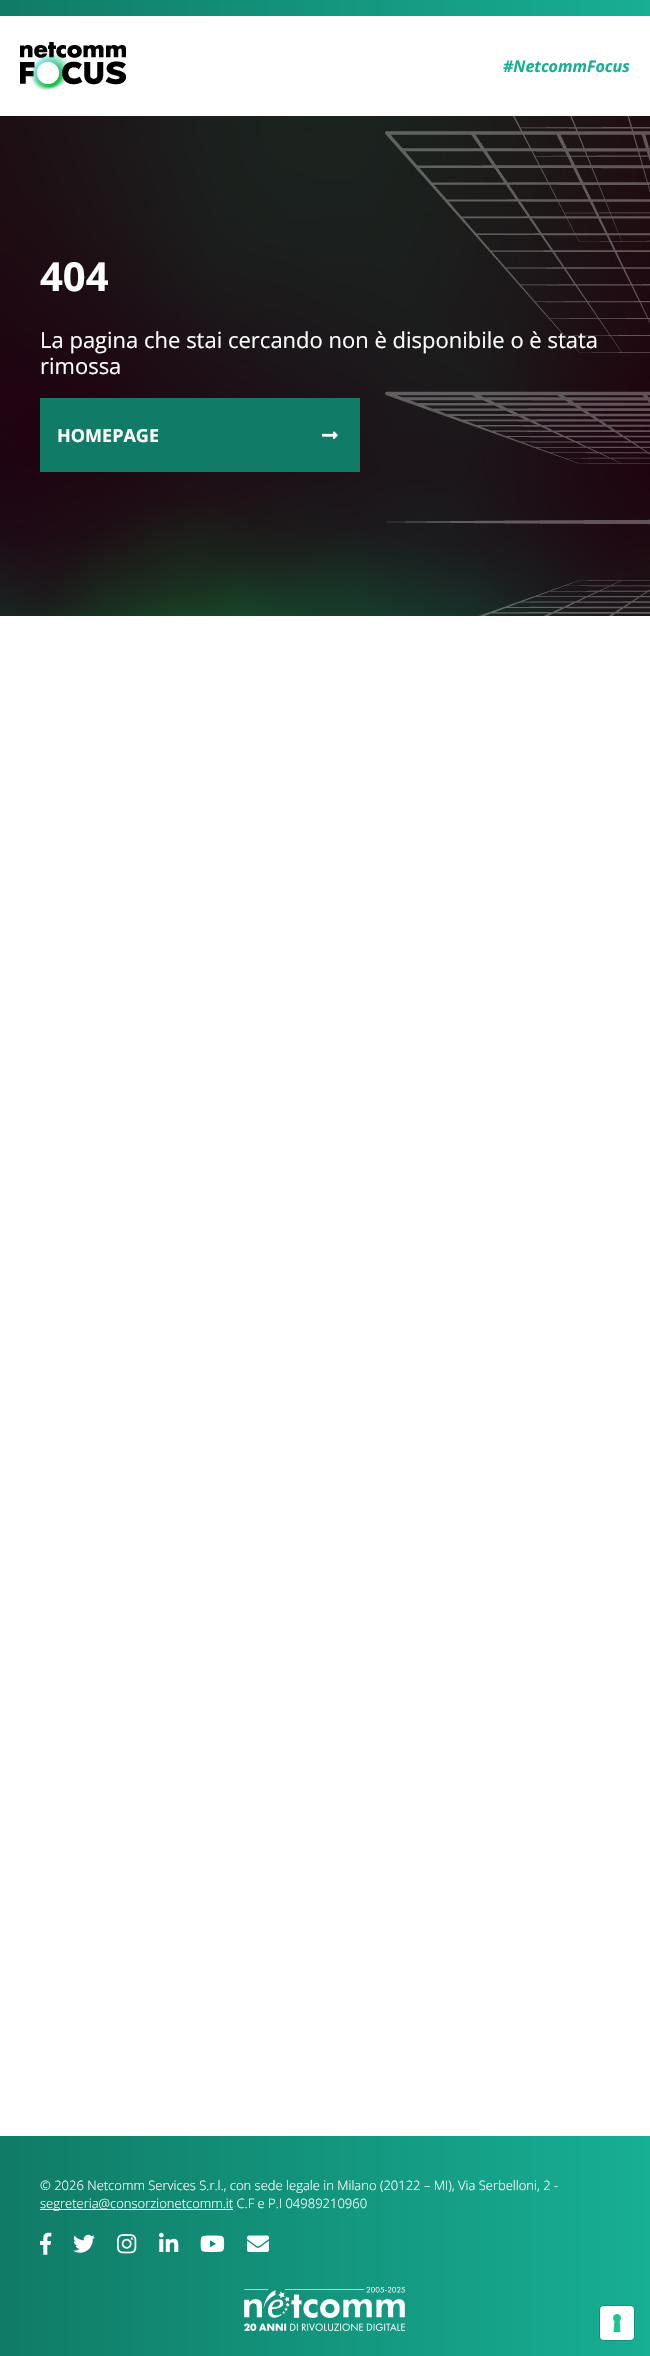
#include "include/core/SkBlurTypes.h"
#include "include/core/SkCanvas.h"
#include "include/core/SkData.h"
#include "include/core/SkFont.h"
#include "include/core/SkFontMgr.h"
#include "include/core/SkImage.h"
#include "include/core/SkMaskFilter.h"
#include "include/core/SkPaint.h"
#include "include/core/SkPathBuilder.h"
#include "include/core/SkTextBlob.h"
#include "include/effects/SkDashPathEffect.h"
#include "include/effects/SkGradientShader.h"
#include "include/utils/SkParsePath.h"

extern sk_sp<SkFontMgr> fontMgr;

static SkFont font(const char* family, int weight, float size, bool italic = false) {
    SkFontStyle style(weight, SkFontStyle::kNormal_Width,
        italic ? SkFontStyle::kItalic_Slant : SkFontStyle::kUpright_Slant);
    SkFont result(fontMgr->matchFamilyStyle(family, style), size);
    result.setSubpixel(true);
    return result;
}

static void drawLabel(SkCanvas* canvas, const char* s, float x, float y, const SkFont& font, SkColor color) {
    SkPaint ink(SkColor4f::FromColor(color));
    ink.setAntiAlias(true);
    canvas->drawString(s, x, y, font, ink);
}

static void fillRect(SkCanvas* canvas, float x, float y, float w, float h, SkColor color) {
    SkPaint ink(SkColor4f::FromColor(color));
    ink.setAntiAlias(true);
    canvas->drawRect(SkRect::MakeXYWH(x, y, w, h), ink);
}

static void fillRRect(SkCanvas* canvas, float x, float y, float w, float h, float radius, SkColor color) {
    SkPaint ink(SkColor4f::FromColor(color));
    ink.setAntiAlias(true);
    canvas->drawRoundRect(SkRect::MakeXYWH(x, y, w, h), radius, radius, ink);
}

static void drawPhoto(SkCanvas* canvas, const char* path, float x, float y, float w, float h) {
    auto image = SkImages::DeferredFromEncodedData(SkData::MakeFromFileName(path));
    canvas->drawImageRect(image, SkRect::MakeXYWH(x, y, w, h), SkSamplingOptions());
}

void draw(SkCanvas* canvas) {
    SkPaint paint;
    paint.setAntiAlias(true);
    canvas->clear(0xFFFFFFFF);
    {
        const SkColor colors[] = {0xFF107B66, 0xFF17AF95};
        const float stops[] = {0, 1};
        const SkPoint ends[] = {{0, 8}, {650, 8}};
        paint.setShader(SkGradientShader::MakeLinear(ends, colors, stops, 2, SkTileMode::kClamp));
        paint.setAlpha(255);
    }
    canvas->drawRect(SkRect::MakeXYWH(0, 0, 650, 16), paint);
    drawPhoto(canvas, "assets/img1.png", 20, 42, 106, 48);
    SkFont font1 = font("Open Sans", 700, 16, true);
    drawLabel(canvas, "#NetcommFocus", 503, 72, font1, 0xFF17AF95);
    drawPhoto(canvas, "assets/img2.png", 0, 116, 650, 500);
    SkFont font2 = font("Open Sans", 700, 40);
    drawLabel(canvas, "404", 40, 291, font2, 0xFFFFFFFF);
    SkFont font3 = font("Open Sans", 400, 22);
    drawLabel(canvas, "La pagina che stai cercando non è disponibile o è stata", 40, 348, font3, 0xFFFFFFFF);
    drawLabel(canvas, "rimossa", 40, 374, font3, 0xFFFFFFFF);
    fillRect(canvas, 40, 398, 320, 74, 0xFF107B66);
    SkFont font4 = font("Open Sans", 700, 18);
    drawLabel(canvas, "HOMEPAGE", 57, 442, font4, 0xFFFFFFFF);
    drawPhoto(canvas, "assets/img3.png", 322, 431, 16, 9);
    {
        const SkColor colors[] = {0xFF107B66, 0xFF17AF95};
        const float stops[] = {0, 1};
        const SkPoint ends[] = {{0, 2246}, {650, 2246}};
        paint.setShader(SkGradientShader::MakeLinear(ends, colors, stops, 2, SkTileMode::kClamp));
        paint.setAlpha(255);
    }
    canvas->drawRect(SkRect::MakeXYWH(0, 2136, 650, 220), paint);
    SkFont font5 = font("Open Sans", 300, 13);
    drawLabel(canvas, "© 2026 Netcomm Services S.r.l., con sede legale in Milano (20122 – MI), Via Serbelloni, 2 -", 40, 2190, font5, 0xFFFFFFFF);
    fillRect(canvas, 40, 2209, 193, 1, 0xFFFFFFFF);
    drawLabel(canvas, "segreteria@consorzionetcomm.it C.F e P.I 04989210960", 40, 2208, font5, 0xFFFFFFFF);
    drawPhoto(canvas, "assets/img4.png", 40, 2232, 12, 23);
    drawPhoto(canvas, "assets/img5.png", 73, 2234, 22, 19);
    drawPhoto(canvas, "assets/img6.png", 117, 2234, 20, 20);
    drawPhoto(canvas, "assets/img7.png", 159, 2232, 20, 20);
    drawPhoto(canvas, "assets/img8.png", 200, 2235, 25, 17);
    drawPhoto(canvas, "assets/img9.png", 247, 2235, 22, 17);
    drawPhoto(canvas, "assets/img10.png", 244, 2287, 161, 44);
    paint.setStroke(true);
    paint.setStrokeWidth(1);
    paint.setShader(nullptr);
    paint.setColor(0x26000000);
    canvas->drawRoundRect(SkRect::MakeXYWH(599.5f, 2305.5f, 35, 35), 4.5f, 4.5f, paint);
    fillRRect(canvas, 600, 2306, 34, 34, 4, 0xFFFFFFFF);
    drawPhoto(canvas, "assets/img11.png", 613, 2314, 8, 18);
}
